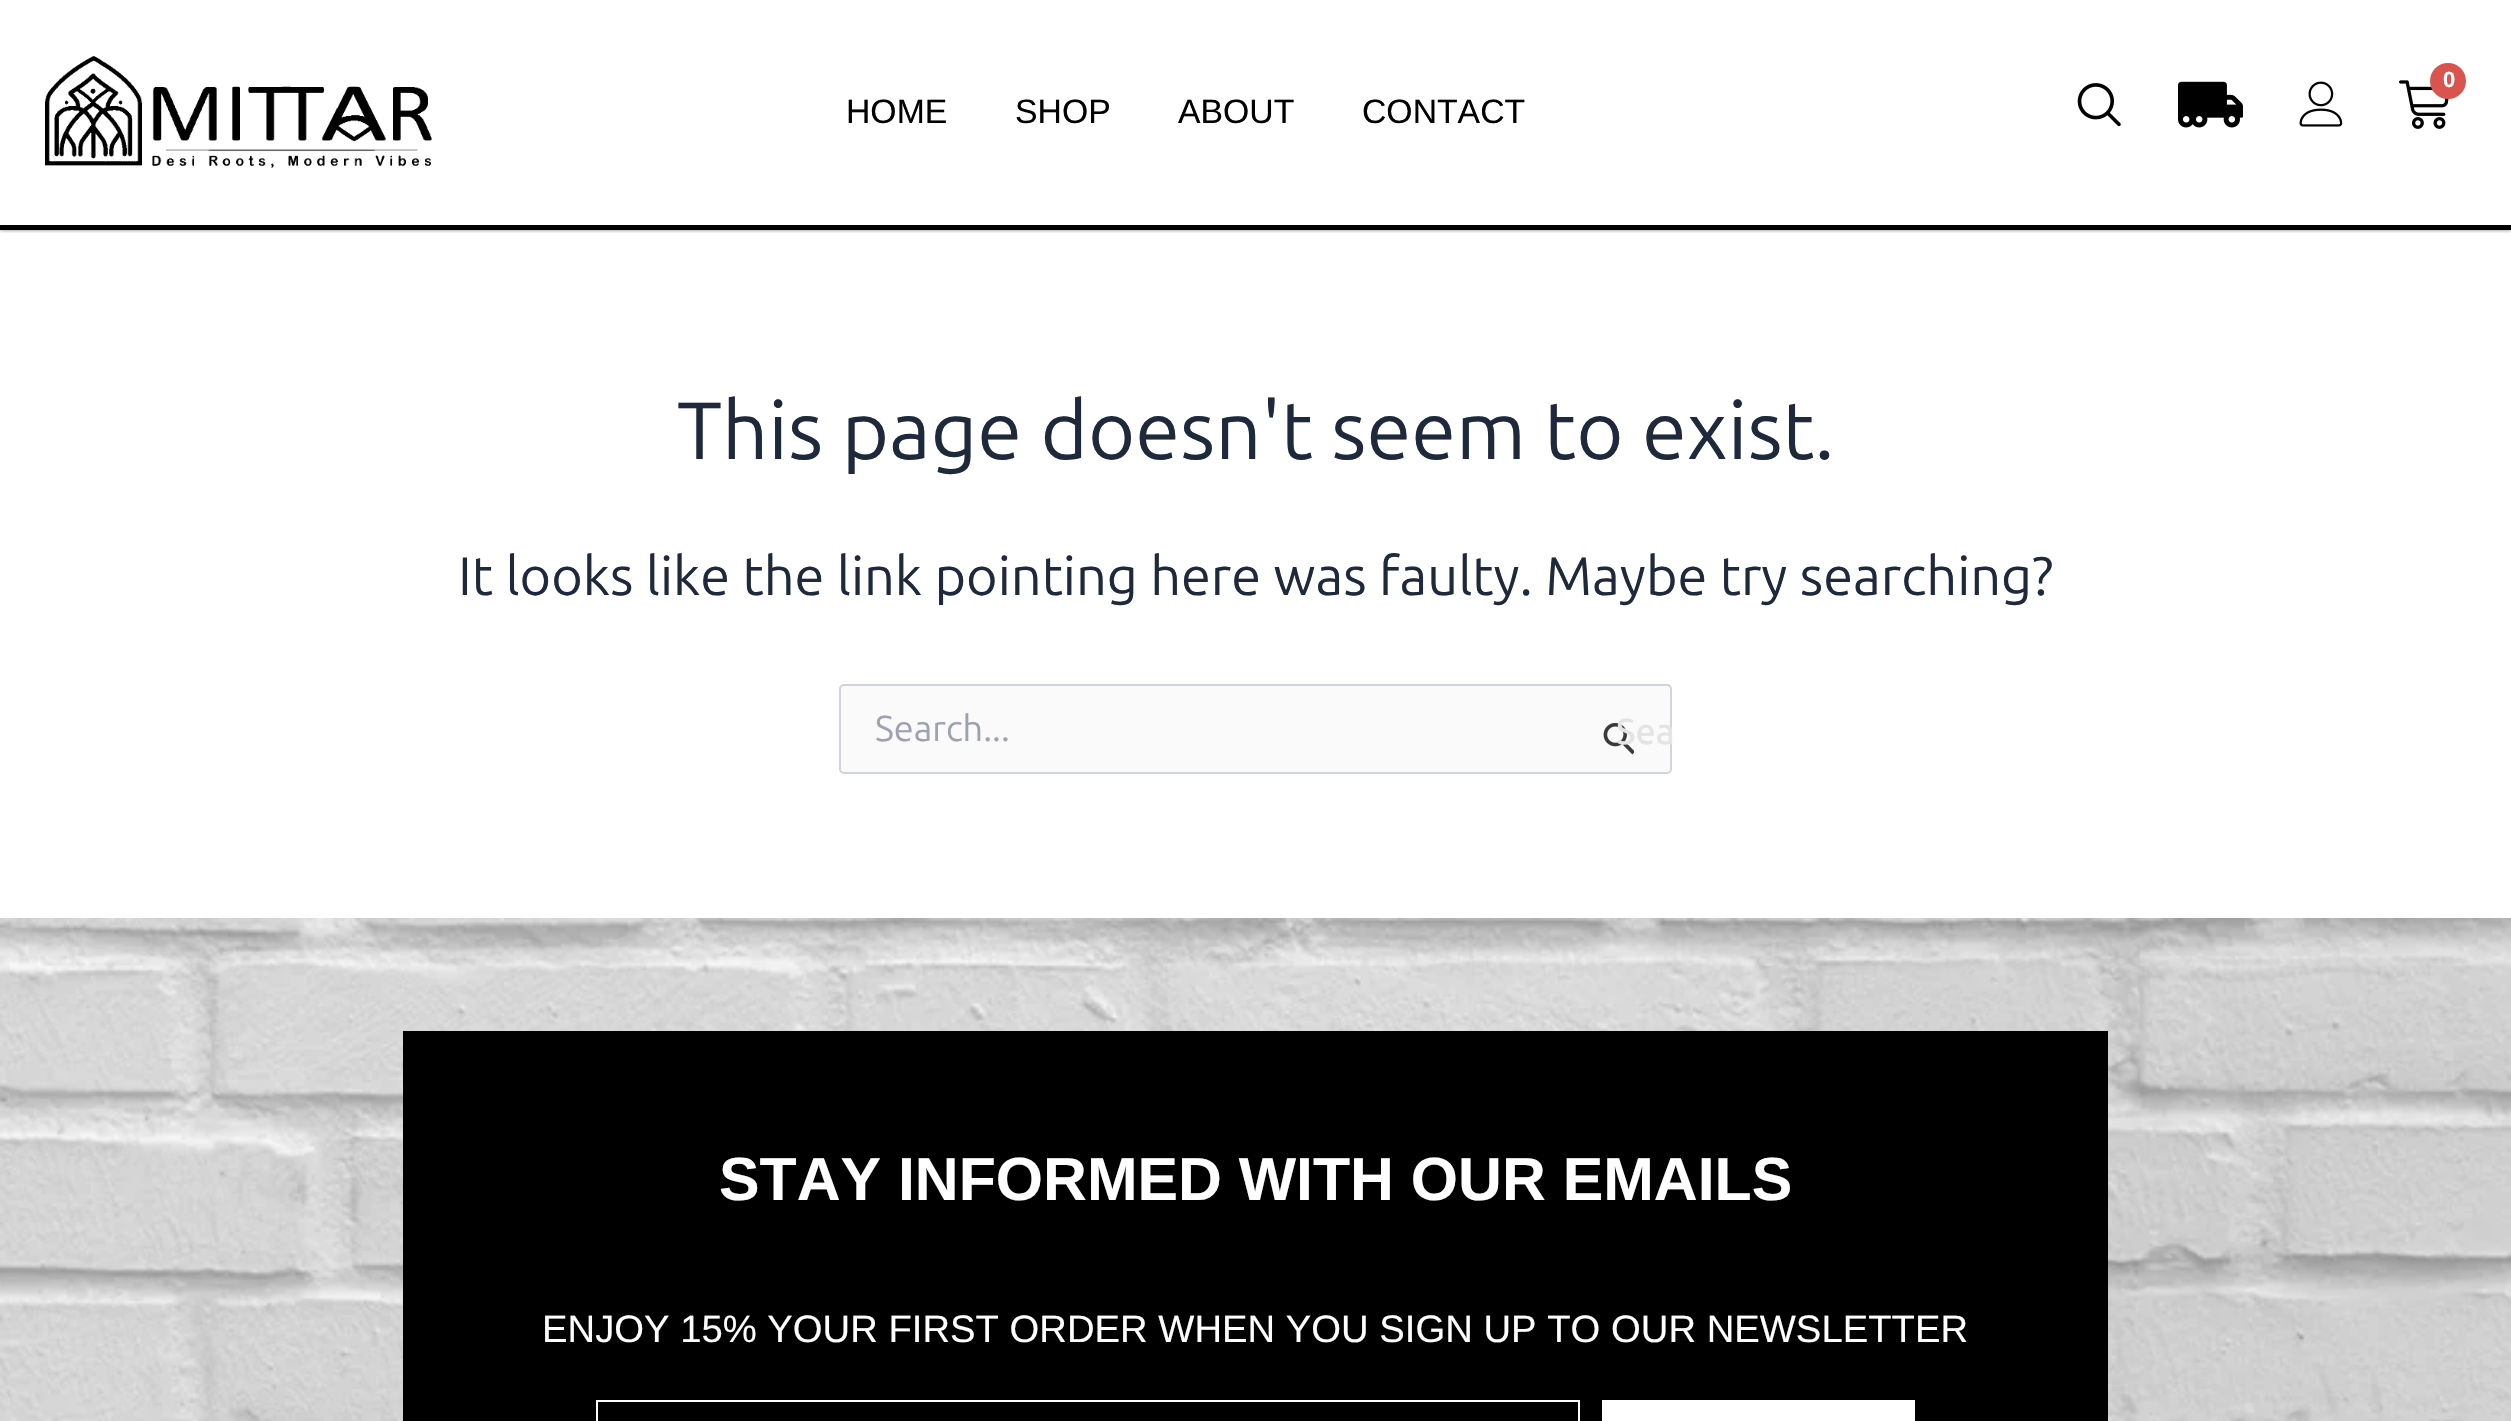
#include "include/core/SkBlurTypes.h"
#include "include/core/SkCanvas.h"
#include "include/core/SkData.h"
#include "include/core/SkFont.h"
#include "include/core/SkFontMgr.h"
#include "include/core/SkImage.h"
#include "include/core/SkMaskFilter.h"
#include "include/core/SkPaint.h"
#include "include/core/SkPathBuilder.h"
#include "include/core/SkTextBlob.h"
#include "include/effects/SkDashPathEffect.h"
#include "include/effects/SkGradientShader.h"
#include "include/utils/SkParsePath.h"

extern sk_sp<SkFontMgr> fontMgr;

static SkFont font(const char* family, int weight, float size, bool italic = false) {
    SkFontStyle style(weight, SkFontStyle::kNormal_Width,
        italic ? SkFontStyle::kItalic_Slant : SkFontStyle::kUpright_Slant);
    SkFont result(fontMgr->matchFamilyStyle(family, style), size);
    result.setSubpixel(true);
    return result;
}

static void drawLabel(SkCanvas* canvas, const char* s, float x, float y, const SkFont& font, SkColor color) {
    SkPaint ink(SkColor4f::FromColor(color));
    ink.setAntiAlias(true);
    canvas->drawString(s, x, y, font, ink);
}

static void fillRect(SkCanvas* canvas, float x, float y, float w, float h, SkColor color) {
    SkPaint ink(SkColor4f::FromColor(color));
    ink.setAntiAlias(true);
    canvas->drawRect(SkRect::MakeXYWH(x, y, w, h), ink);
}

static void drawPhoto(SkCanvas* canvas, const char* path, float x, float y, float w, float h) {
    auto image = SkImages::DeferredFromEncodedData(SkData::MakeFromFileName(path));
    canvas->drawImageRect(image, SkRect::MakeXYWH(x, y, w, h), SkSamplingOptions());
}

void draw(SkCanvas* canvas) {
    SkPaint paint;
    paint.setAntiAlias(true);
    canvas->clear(0xFFFFFFFF);
    canvas->save();
    canvas->clipRect(SkRect::MakeXYWH(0, 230, 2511, 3));
    paint.setColor(0x80000000);
    paint.setMaskFilter(SkMaskFilter::MakeBlur(kNormal_SkBlurStyle, 2));
    canvas->drawRect(SkRect::MakeXYWH(0, 0, 2511, 230), paint);
    paint.setMaskFilter(nullptr);
    canvas->restore();
    fillRect(canvas, 0, 225, 2511, 5, 0xFF000000);
    drawPhoto(canvas, "assets/img1.png", 45, 56, 387, 112);
    SkFont font1 = font("Liberation Sans", 400, 33.75f);
    drawLabel(canvas, "HOME", 846, 123, font1, 0xFF000000);
    drawLabel(canvas, "SHOP", 1015, 123, font1, 0xFF000000);
    drawLabel(canvas, "ABOUT", 1178, 123, font1, 0xFF000000);
    drawLabel(canvas, "CONTACT", 1362, 123, font1, 0xFF000000);
    drawPhoto(canvas, "assets/img2.png", 2077, 83, 44, 44);
    drawPhoto(canvas, "assets/img3.png", 2178, 81, 65, 47);
    drawPhoto(canvas, "assets/img4.png", 2299, 81, 44, 46);
    drawPhoto(canvas, "assets/img5.png", 2399, 80, 50, 49);
    paint.setColor(0xFFD9534F);
    canvas->drawCircle(2448, 81, 18, paint);
    SkFont font2 = font("Liberation Sans", 700, 22);
    drawLabel(canvas, "0", 2443, 87, font2, 0xFFFFFFFF);
    SkFont font3 = font("Ubuntu", 400, 81);
    drawLabel(canvas, "This page doesn't seem to exist.", 677, 459, font3, 0xFF1E293B);
    SkFont font4 = font("Ubuntu", 400, 54);
    drawLabel(canvas, "It looks like the link pointing here was faulty. Maybe try searching?", 458, 595, font4, 0xFF1E293B);
    paint.setColor(0xFFFAFAFA);
    canvas->drawRoundRect(SkRect::MakeXYWH(840, 685, 831, 88), 4, 4, paint);
    paint.setStroke(true);
    paint.setStrokeWidth(2);
    paint.setColor(0xFFD1D5DB);
    canvas->drawRoundRect(SkRect::MakeXYWH(840, 685, 831, 88), 4, 4, paint);
    SkFont font5 = font("Ubuntu", 400, 36);
    drawLabel(canvas, "Search...", 875, 741, font5, 0xFF9CA3AF);
    drawPhoto(canvas, "assets/img6.png", 1603, 722, 31, 33);
    SkFont font6 = font("Ubuntu", 500, 36);
    drawLabel(canvas, "Sea", 1616, 744, font6, 0xFFE4E4E4);
    drawPhoto(canvas, "assets/img7.png", 0, 918, 2511, 503);
    fillRect(canvas, 403, 1031, 1705, 390, 0xFF000000);
    SkFont font7 = font("Liberation Sans", 700, 60.75f);
    drawLabel(canvas, "STAY INFORMED WITH OUR EMAILS", 719, 1200, font7, 0xFFFFFFFF);
    SkFont font8 = font("Liberation Sans", 400, 38.25f);
    drawLabel(canvas, "ENJOY 15% YOUR FIRST ORDER WHEN YOU SIGN UP TO OUR NEWSLETTER", 542, 1342, font8, 0xFFFFFFFF);
    paint.setColor(0xFFFFFFFF);
    canvas->drawRect(SkRect::MakeXYWH(597, 1401, 982, 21), paint);
    fillRect(canvas, 1602, 1400, 313, 21, 0xFFFFFFFF);
}
